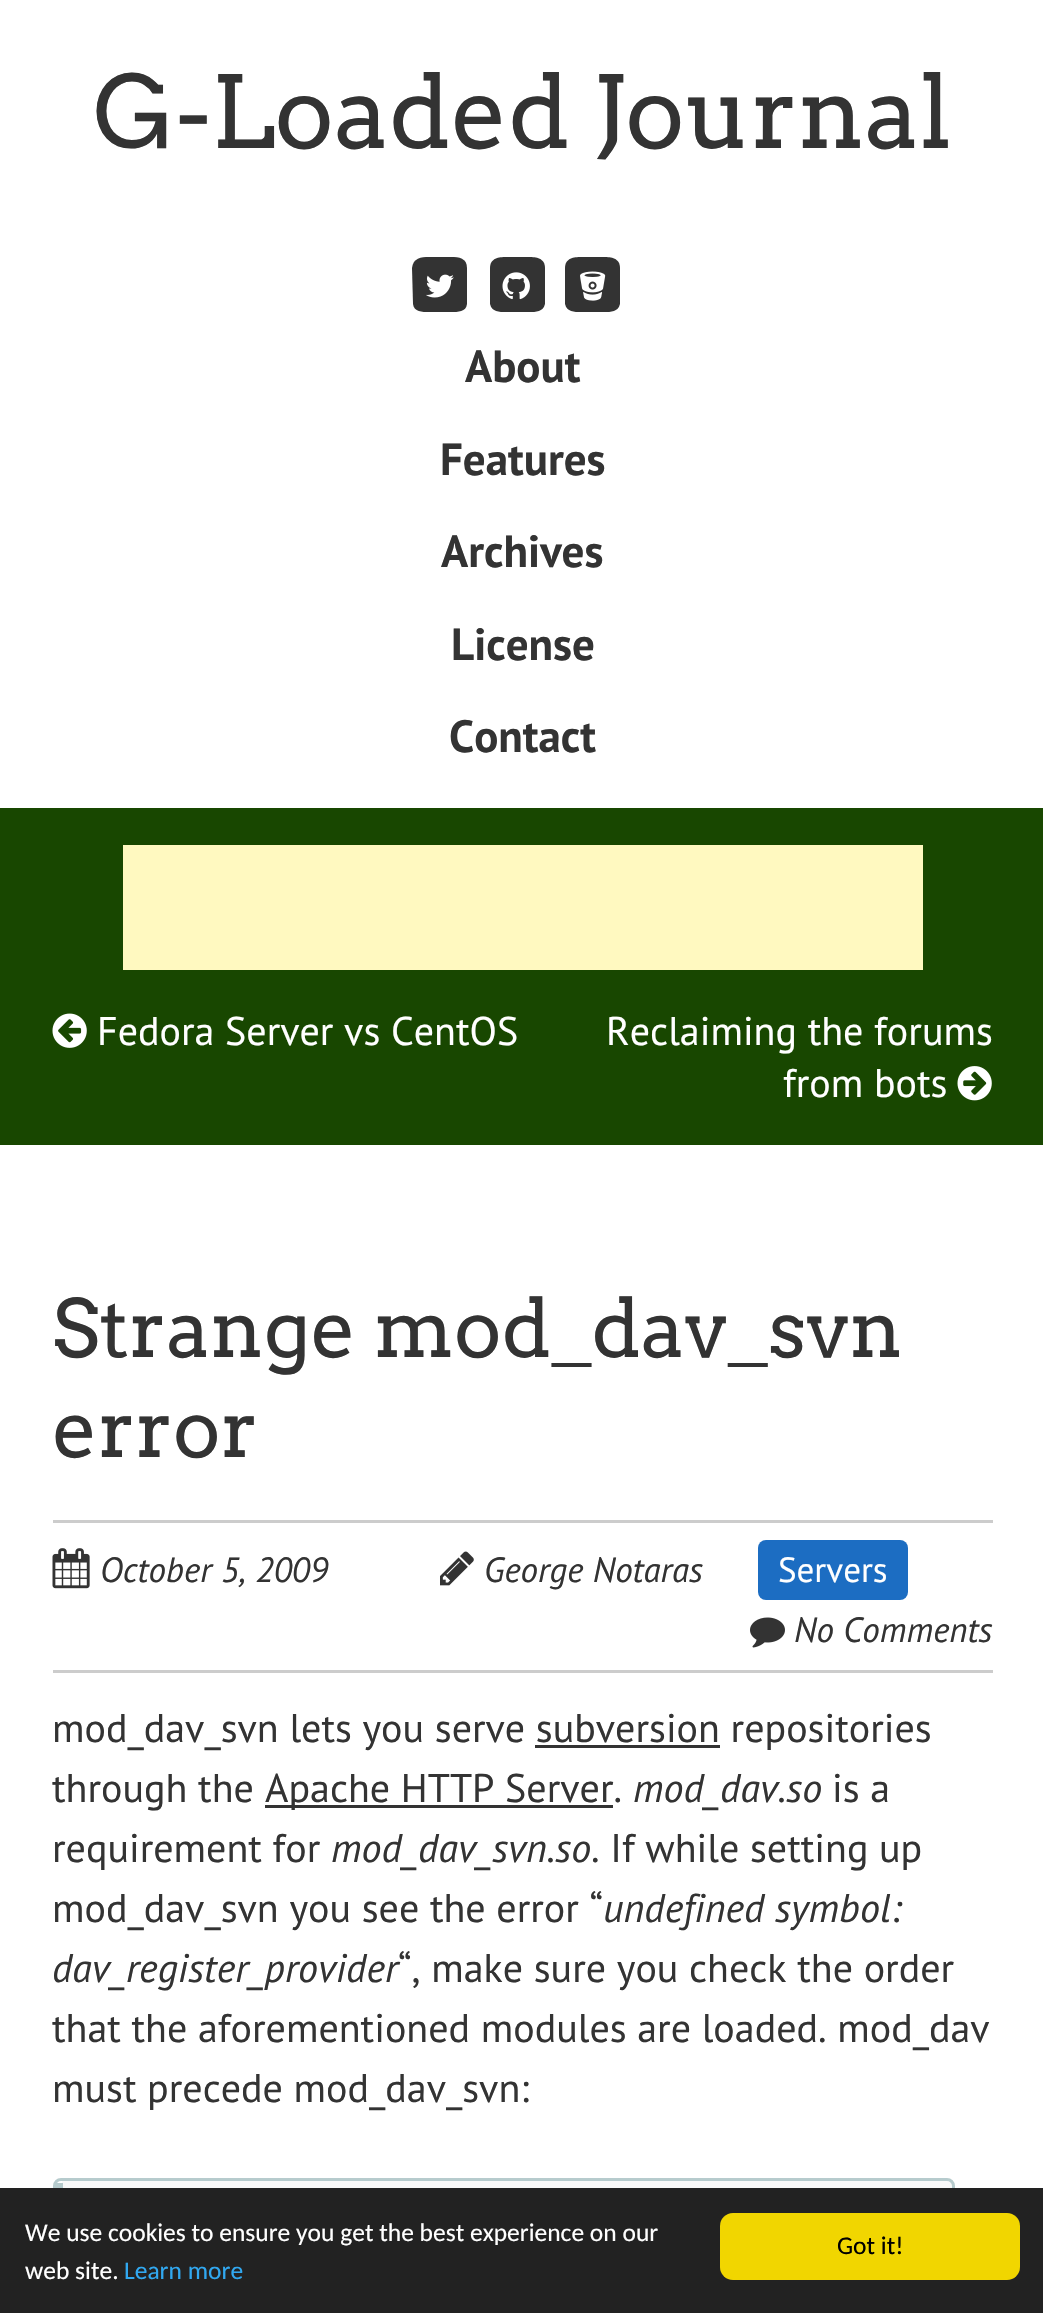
#include "include/core/SkBlurTypes.h"
#include "include/core/SkCanvas.h"
#include "include/core/SkData.h"
#include "include/core/SkFont.h"
#include "include/core/SkFontMgr.h"
#include "include/core/SkImage.h"
#include "include/core/SkMaskFilter.h"
#include "include/core/SkPaint.h"
#include "include/core/SkPathBuilder.h"
#include "include/core/SkTextBlob.h"
#include "include/effects/SkDashPathEffect.h"
#include "include/effects/SkGradientShader.h"
#include "include/utils/SkParsePath.h"

extern sk_sp<SkFontMgr> fontMgr;

static SkFont font(const char* family, int weight, float size, bool italic = false) {
    SkFontStyle style(weight, SkFontStyle::kNormal_Width,
        italic ? SkFontStyle::kItalic_Slant : SkFontStyle::kUpright_Slant);
    SkFont result(fontMgr->matchFamilyStyle(family, style), size);
    result.setSubpixel(true);
    return result;
}

static void drawLabel(SkCanvas* canvas, const char* s, float x, float y, const SkFont& font, SkColor color) {
    SkPaint ink(SkColor4f::FromColor(color));
    ink.setAntiAlias(true);
    canvas->drawString(s, x, y, font, ink);
}

static void fillRect(SkCanvas* canvas, float x, float y, float w, float h, SkColor color) {
    SkPaint ink(SkColor4f::FromColor(color));
    ink.setAntiAlias(true);
    canvas->drawRect(SkRect::MakeXYWH(x, y, w, h), ink);
}

static void fillRRect(SkCanvas* canvas, float x, float y, float w, float h, float radius, SkColor color) {
    SkPaint ink(SkColor4f::FromColor(color));
    ink.setAntiAlias(true);
    canvas->drawRoundRect(SkRect::MakeXYWH(x, y, w, h), radius, radius, ink);
}

static void drawPhoto(SkCanvas* canvas, const char* path, float x, float y, float w, float h) {
    auto image = SkImages::DeferredFromEncodedData(SkData::MakeFromFileName(path));
    canvas->drawImageRect(image, SkRect::MakeXYWH(x, y, w, h), SkSamplingOptions());
}

static SkPath parsePath(const char* data, bool evenOdd = false) {
    SkPath result = *SkParsePath::FromSVGString(data);
    if (evenOdd) result.setFillType(SkPathFillType::kEvenOdd);
    return result;
}

void draw(SkCanvas* canvas) {
    SkPaint paint;
    paint.setAntiAlias(true);
    canvas->clear(0xFFFFFFFF);
    SkFont font1 = font("Arvo", 400, 100);
    drawLabel(canvas, "G-Loaded Journal", 93, 148, font1, 0xFF333333);
    paint.setColor(0xFF333333);
    canvas->drawPath(parsePath("M467 268V304C466 312 458 312 451 312H429C422 312 414 312 413 304L412 268C413 258 421 257 429 257H451C459 257 467 258 467 268Z"), paint);
    drawPhoto(canvas, "assets/img1.png", 426, 274, 28, 24);
    canvas->drawPath(parsePath("M545 268V304C543 312 536 312 529 312H506C499 312 492 312 490 304V268C490 258 499 257 506 257H529C536 257 545 258 545 268Z"), paint);
    drawPhoto(canvas, "assets/img2.png", 502, 272, 28, 28);
    canvas->drawPath(parsePath("M620 268V304C618 312 611 312 604 312H581C574 312 567 312 565 304V268C565 258 574 257 581 257H604C611 257 620 258 620 268Z"), paint);
    drawPhoto(canvas, "assets/img3.png", 580, 271, 26, 30);
    SkFont font2 = font("PT Sans", 700, 45);
    drawLabel(canvas, "About", 465, 382, font2, 0xFF333333);
    drawLabel(canvas, "Features", 440, 475, font2, 0xFF333333);
    drawLabel(canvas, "Archives", 441, 567, font2, 0xFF333333);
    drawLabel(canvas, "License", 451, 660, font2, 0xFF333333);
    drawLabel(canvas, "Contact", 449, 752, font2, 0xFF333333);
    fillRect(canvas, 0, 808, 1043, 337, 0xFF184700);
    fillRect(canvas, 123, 845, 800, 125, 0xFFFFF9C0);
    drawPhoto(canvas, "assets/img4.png", 52, 1013, 35, 35);
    SkFont font3 = font("PT Sans", 400, 40);
    drawLabel(canvas, "Fedora Server vs CentOS", 97, 1045, font3, 0xFFFFFFFF);
    drawLabel(canvas, "Reclaiming the forums", 606, 1045, font3, 0xFFFFFFFF);
    drawLabel(canvas, "from bots", 783, 1097, font3, 0xFFFFFFFF);
    drawPhoto(canvas, "assets/img5.png", 957, 1066, 35, 35);
    SkFont font4 = font("Arvo", 400, 80);
    drawLabel(canvas, "Strange mod_dav_svn", 52, 1357, font4, 0xFF333333);
    drawLabel(canvas, "error", 52, 1457, font4, 0xFF333333);
    fillRect(canvas, 53, 1520, 940, 3, 0xFFCCCCCC);
    fillRect(canvas, 53, 1670, 940, 3, 0xFFCCCCCC);
    drawPhoto(canvas, "assets/img6.png", 52, 1548, 38, 41);
    SkFont font5 = font("PT Sans", 400, 35, true);
    drawLabel(canvas, "October 5, 2009", 100, 1582, font5, 0xFF333333);
    drawPhoto(canvas, "assets/img7.png", 440, 1551, 34, 35);
    drawLabel(canvas, "George Notaras", 484, 1582, font5, 0xFF333333);
    fillRRect(canvas, 758, 1540, 150, 60, 8, 0xFF1C6DC2);
    SkFont font6 = font("PT Sans", 400, 35);
    drawLabel(canvas, "Servers", 778, 1582, font6, 0xFFFFFFFF);
    drawPhoto(canvas, "assets/img8.png", 750, 1617, 35, 31);
    drawLabel(canvas, "No Comments", 794, 1642, font5, 0xFF333333);
    drawLabel(canvas, "mod_dav_svn lets you serve subversion repositories", 52, 1742, font3, 0xFF333333);
    fillRect(canvas, 535, 1745, 185, 3, 0xFF333333);
    drawLabel(canvas, "through the", 52, 1802, font3, 0xFF333333);
    fillRect(canvas, 265, 1805, 348, 3, 0xFF333333);
    drawLabel(canvas, "Apache HTTP Server.", 265, 1802, font3, 0xFF333333);
    SkFont font7 = font("PT Sans", 400, 40, true);
    drawLabel(canvas, "mod_dav.so", 633, 1802, font7, 0xFF333333);
    drawLabel(canvas, "is a", 832, 1802, font3, 0xFF333333);
    drawLabel(canvas, "requirement for", 52, 1862, font3, 0xFF333333);
    drawLabel(canvas, "mod_dav_svn.so", 331, 1862, font7, 0xFF333333);
    drawLabel(canvas, ". If while setting up", 591, 1862, font3, 0xFF333333);
    drawLabel(canvas, "mod_dav_svn you see the error “", 52, 1922, font3, 0xFF333333);
    drawLabel(canvas, "undefined symbol:", 603, 1922, font7, 0xFF333333);
    drawLabel(canvas, "dav_register_provider", 52, 1982, font7, 0xFF333333);
    drawLabel(canvas, "“, make sure you check the order", 398, 1982, font3, 0xFF333333);
    drawLabel(canvas, "that the aforementioned modules are loaded. mod_dav", 52, 2042, font3, 0xFF333333);
    drawLabel(canvas, "must precede mod_dav_svn:", 52, 2102, font3, 0xFF333333);
    paint.setColor(0xFFF9F9F9);
    canvas->drawPath(parsePath("M62 2180H948C950 2180 952 2182 952 2185V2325C952 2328 950 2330 948 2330H62Z"), paint);
    paint.setStroke(true);
    paint.setStrokeWidth(3);
    paint.setColor(0xFFB6CBCD);
    canvas->drawRoundRect(SkRect::MakeXYWH(54.5f, 2179.5f, 899, 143), 6.5f, 6.5f, paint);
    fillRect(canvas, 55, 2183, 8, 5, 0xFFB6CBCD);
    fillRect(canvas, 0, 2188, 1043, 125, 0xFF222222);
    SkFont font8 = font("Carlito", 400, 25.5f);
    drawLabel(canvas, "We use cookies to ensure you get the best experience on our", 25, 2241, font8, 0xFFFFFFFF);
    drawLabel(canvas, "web site.", 25, 2279, font8, 0xFFFFFFFF);
    drawLabel(canvas, "Learn more", 124, 2279, font8, 0xFF31A8F0);
    fillRRect(canvas, 720, 2213, 300, 67, 13, 0xFFF1D600);
    drawLabel(canvas, "Got it!", 837, 2254, font8, 0xFF000000);
}
